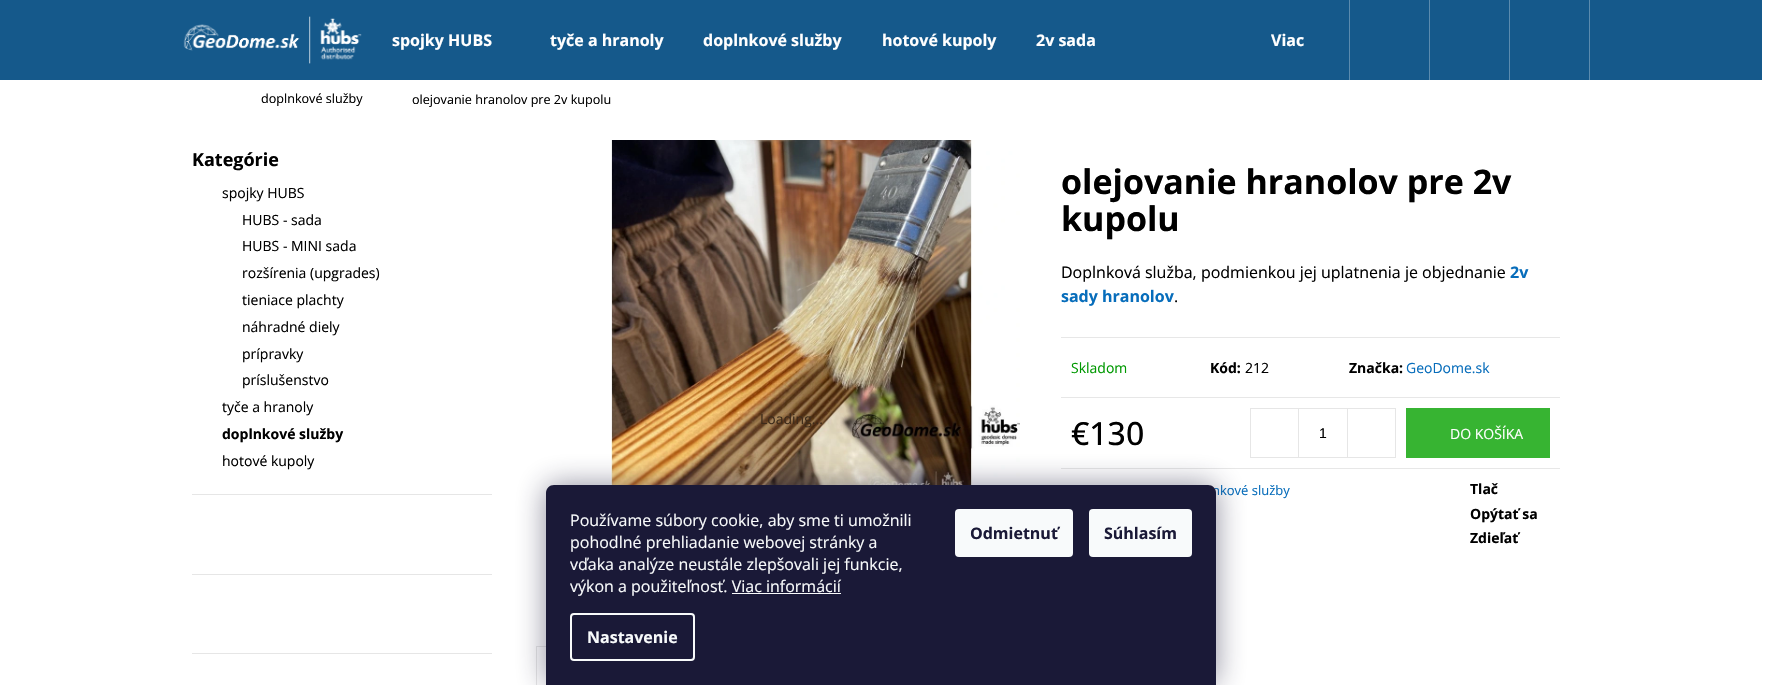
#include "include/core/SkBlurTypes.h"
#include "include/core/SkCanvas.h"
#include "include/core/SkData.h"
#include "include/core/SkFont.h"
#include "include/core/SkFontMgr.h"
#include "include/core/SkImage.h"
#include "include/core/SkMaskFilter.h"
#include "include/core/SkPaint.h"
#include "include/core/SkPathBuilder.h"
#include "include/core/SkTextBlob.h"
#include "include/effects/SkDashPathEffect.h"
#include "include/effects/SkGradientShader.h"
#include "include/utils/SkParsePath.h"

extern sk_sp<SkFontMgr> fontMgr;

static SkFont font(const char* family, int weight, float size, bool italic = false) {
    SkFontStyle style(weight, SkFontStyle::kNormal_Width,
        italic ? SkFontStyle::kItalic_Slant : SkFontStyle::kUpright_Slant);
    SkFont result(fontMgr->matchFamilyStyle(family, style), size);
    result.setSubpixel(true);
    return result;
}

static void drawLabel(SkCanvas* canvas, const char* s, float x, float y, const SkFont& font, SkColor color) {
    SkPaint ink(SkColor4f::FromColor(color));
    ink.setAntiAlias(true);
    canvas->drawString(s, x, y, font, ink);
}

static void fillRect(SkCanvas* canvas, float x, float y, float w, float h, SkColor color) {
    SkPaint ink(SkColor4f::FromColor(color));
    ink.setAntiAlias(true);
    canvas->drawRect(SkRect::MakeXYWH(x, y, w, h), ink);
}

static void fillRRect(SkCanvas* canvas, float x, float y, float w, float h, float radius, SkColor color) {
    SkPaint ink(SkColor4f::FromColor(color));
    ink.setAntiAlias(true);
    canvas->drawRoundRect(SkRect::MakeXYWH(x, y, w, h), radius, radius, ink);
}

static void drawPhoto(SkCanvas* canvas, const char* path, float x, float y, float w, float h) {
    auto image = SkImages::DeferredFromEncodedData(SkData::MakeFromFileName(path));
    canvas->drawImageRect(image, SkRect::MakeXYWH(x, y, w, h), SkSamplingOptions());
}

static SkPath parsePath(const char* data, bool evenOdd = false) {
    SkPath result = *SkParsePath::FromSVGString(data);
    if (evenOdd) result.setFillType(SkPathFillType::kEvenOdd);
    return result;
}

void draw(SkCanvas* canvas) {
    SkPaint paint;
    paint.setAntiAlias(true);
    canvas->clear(0xFFFFFFFF);
    fillRect(canvas, 0, 0, 1762, 80, 0xFF15598B);
    drawPhoto(canvas, "assets/img1.png", 183, 16, 179, 48);
    SkFont font1 = font("Open Sans", 700, 16);
    drawLabel(canvas, "spojky HUBS", 392, 46, font1, 0xFFFFFFFF);
    drawLabel(canvas, "tyče a hranoly", 550, 46, font1, 0xFFFFFFFF);
    drawLabel(canvas, "doplnkové služby", 703, 46, font1, 0xFFFFFFFF);
    drawLabel(canvas, "hotové kupoly", 882, 46, font1, 0xFFFFFFFF);
    drawLabel(canvas, "2v sada", 1036, 46, font1, 0xFFFFFFFF);
    drawLabel(canvas, "Viac", 1271, 46, font1, 0xFFFFFFFF);
    fillRect(canvas, 1589, 0, 1, 80, 0xFF5B8BAE);
    fillRect(canvas, 1349, 0, 1, 80, 0xFF5B8BAE);
    fillRect(canvas, 1429, 0, 1, 80, 0xFF5B8BAE);
    fillRect(canvas, 1509, 0, 1, 80, 0xFF5B8BAE);
    SkFont font2 = font("Open Sans", 400, 12.6f);
    drawLabel(canvas, "doplnkové služby", 261, 103, font2, 0xFF000000);
    drawLabel(canvas, "olejovanie hranolov pre 2v kupolu", 412, 104, font2, 0xFF000000);
    SkFont font3 = font("Open Sans", 700, 18);
    drawLabel(canvas, "Kategórie", 192, 166, font3, 0xFF000000);
    SkFont font4 = font("Open Sans", 400, 14);
    drawLabel(canvas, "spojky HUBS", 222, 198, font4, 0xFF000000);
    drawLabel(canvas, "HUBS - sada", 242, 225, font4, 0xFF000000);
    drawLabel(canvas, "HUBS - MINI sada", 242, 251, font4, 0xFF000000);
    drawLabel(canvas, "rozšírenia (upgrades)", 242, 278, font4, 0xFF000000);
    drawLabel(canvas, "tieniace plachty", 242, 305, font4, 0xFF000000);
    drawLabel(canvas, "náhradné diely", 242, 332, font4, 0xFF000000);
    drawLabel(canvas, "prípravky", 242, 359, font4, 0xFF000000);
    drawLabel(canvas, "príslušenstvo", 242, 385, font4, 0xFF000000);
    drawLabel(canvas, "tyče a hranoly", 222, 412, font4, 0xFF000000);
    SkFont font5 = font("Open Sans", 700, 14);
    drawLabel(canvas, "doplnkové služby", 222, 439, font5, 0xFF000000);
    drawLabel(canvas, "hotové kupoly", 222, 466, font4, 0xFF000000);
    fillRect(canvas, 192, 494, 300, 1, 0xFFE6E6E6);
    fillRect(canvas, 192, 574, 300, 1, 0xFFE6E6E6);
    fillRect(canvas, 192, 653, 300, 1, 0xFFE6E6E6);
    drawPhoto(canvas, "assets/img2.png", 611, 140, 409, 345);
    drawLabel(canvas, "Loading...", 760, 424, font4, 0xFF3D2B1A);
    SkFont font6 = font("Open Sans", 700, 34);
    drawLabel(canvas, "olejovanie hranolov pre 2v", 1061, 194, font6, 0xFF000000);
    drawLabel(canvas, "kupolu", 1061, 231, font6, 0xFF000000);
    SkFont font7 = font("Open Sans", 400, 16);
    drawLabel(canvas, "Doplnková služba, podmienkou jej uplatnenia je objednanie", 1061, 278, font7, 0xFF000000);
    drawLabel(canvas, "2v", 1510, 278, font1, 0xFF076DBB);
    drawLabel(canvas, "sady hranolov", 1061, 302, font1, 0xFF076DBB);
    drawLabel(canvas, ".", 1174, 302, font7, 0xFF000000);
    fillRect(canvas, 1061, 337, 499, 1, 0xFFE7E7E7);
    fillRect(canvas, 1061, 397, 499, 1, 0xFFE7E7E7);
    drawLabel(canvas, "Skladom", 1071, 373, font4, 0xFF009901);
    drawLabel(canvas, "Kód:", 1210, 373, font5, 0xFF000000);
    drawLabel(canvas, "212", 1245, 373, font4, 0xFF000000);
    drawLabel(canvas, "Značka:", 1349, 373, font5, 0xFF000000);
    drawLabel(canvas, "GeoDome.sk", 1406, 373, font4, 0xFF076DBB);
    fillRect(canvas, 1061, 468, 499, 1, 0xFFE7E7E7);
    SkFont font8 = font("Open Sans", 500, 32);
    drawLabel(canvas, "€130", 1071, 445, font8, 0xFF000000);
    paint.setStroke(true);
    paint.setStrokeWidth(1);
    paint.setColor(0xFFE6E6E6);
    canvas->drawRect(SkRect::MakeXYWH(1250.5f, 408.5f, 145, 49), paint);
    fillRect(canvas, 1298, 409, 1, 48, 0xFFE6E6E6);
    SkFont font9 = font("Liberation Sans", 400, 14);
    drawLabel(canvas, "1", 1319, 438, font9, 0xFF000000);
    fillRect(canvas, 1347, 409, 1, 48, 0xFFE6E6E6);
    fillRect(canvas, 1406, 408, 144, 50, 0xFF37B432);
    drawLabel(canvas, "DO KOŠÍKA", 1450, 439, font4, 0xFFFFFFFF);
    SkFont font10 = font("Open Sans", 400, 13);
    drawLabel(canvas, "nkové služby", 1212, 495, font10, 0xFF076DBB);
    drawLabel(canvas, "Tlač", 1470, 494, font5, 0xFF000000);
    drawLabel(canvas, "Opýtať sa", 1470, 519, font5, 0xFF000000);
    drawLabel(canvas, "Zdieľať", 1470, 543, font5, 0xFF000000);
    fillRect(canvas, 536, 646, 10, 1, 0xFFE7E7E7);
    fillRect(canvas, 536, 646, 1, 39, 0xFFE7E7E7);
    paint.setStroke(false);
    paint.setColor(0x801B1939);
    paint.setMaskFilter(SkMaskFilter::MakeBlur(kNormal_SkBlurStyle, 15));
    canvas->drawRoundRect(SkRect::MakeXYWH(546, 485, 670, 200), 8, 8, paint);
    paint.setMaskFilter(nullptr);
    paint.setColor(0xFF1A1937);
    canvas->drawPath(parsePath("M554 485H1208C1212.5 485 1216 488.5 1216 493V685H546V493C546 488.5 549.5 485 554 485Z"), paint);
    drawLabel(canvas, "Používame súbory cookie, aby sme ti umožnili", 570, 526, font7, 0xFFF8FAFB);
    drawLabel(canvas, "pohodlné prehliadanie webovej stránky a", 570, 548, font7, 0xFFF8FAFB);
    drawLabel(canvas, "vďaka analýze neustále zlepšovali jej funkcie,", 570, 570, font7, 0xFFF8FAFB);
    drawLabel(canvas, "výkon a použiteľnosť. Viac informácií", 570, 592, font7, 0xFFF8FAFB);
    fillRect(canvas, 732, 593, 109, 1, 0xFFF8FAFB);
    paint.setStroke(true);
    paint.setStrokeWidth(2);
    paint.setColor(0xFFF8FAFB);
    canvas->drawRoundRect(SkRect::MakeXYWH(571, 614, 123, 46), 3, 3, paint);
    drawLabel(canvas, "Nastavenie", 587, 643, font1, 0xFFF8FAFB);
    fillRRect(canvas, 955, 509, 118, 48, 4, 0xFFF8FAFB);
    drawLabel(canvas, "Odmietnuť", 970, 539, font1, 0xFF1A1937);
    fillRRect(canvas, 1089, 509, 103, 48, 4, 0xFFF8FAFB);
    drawLabel(canvas, "Súhlasím", 1104, 539, font1, 0xFF1A1937);
}
